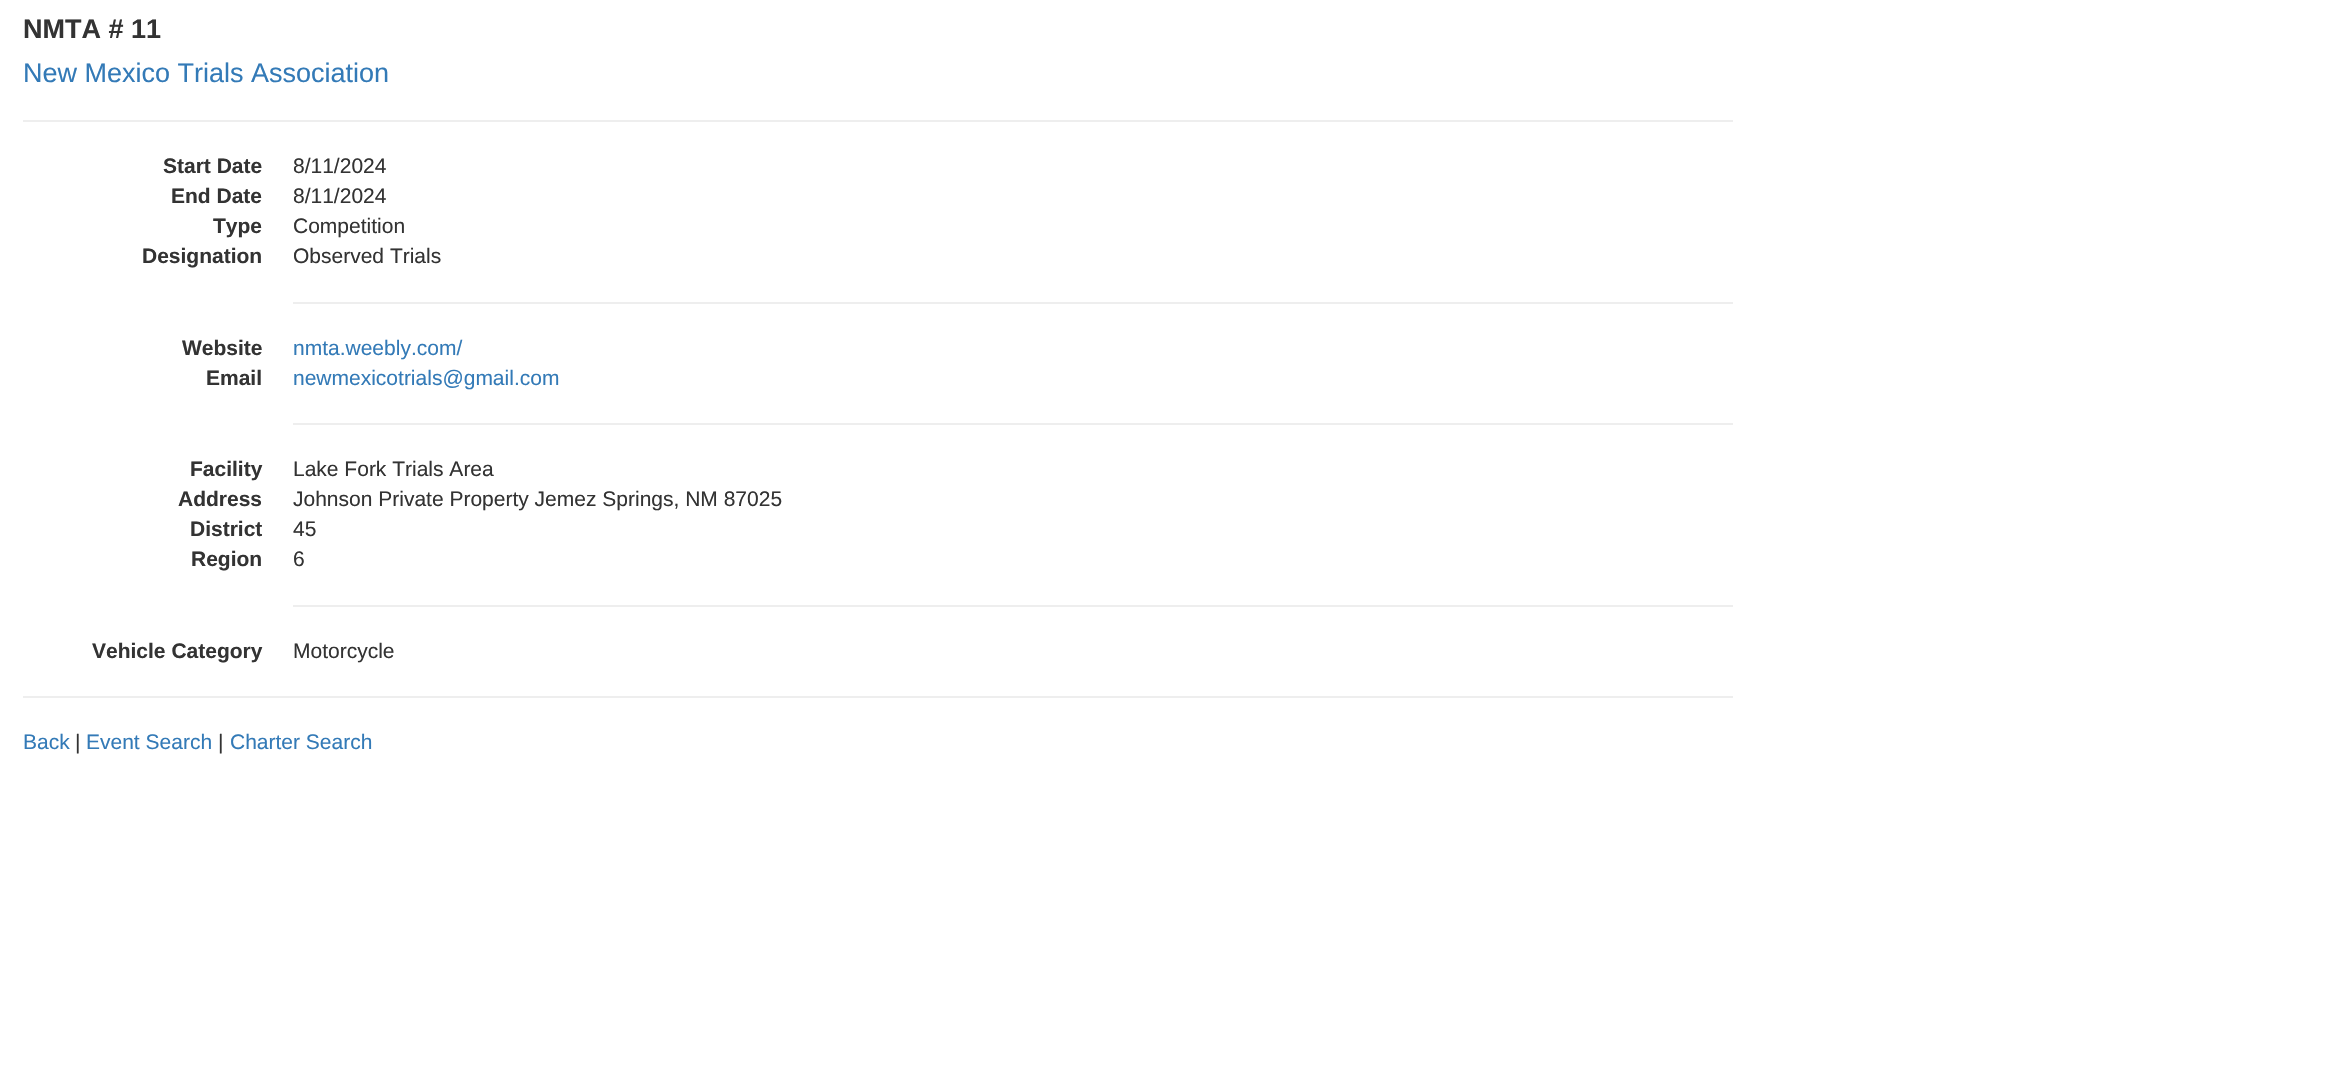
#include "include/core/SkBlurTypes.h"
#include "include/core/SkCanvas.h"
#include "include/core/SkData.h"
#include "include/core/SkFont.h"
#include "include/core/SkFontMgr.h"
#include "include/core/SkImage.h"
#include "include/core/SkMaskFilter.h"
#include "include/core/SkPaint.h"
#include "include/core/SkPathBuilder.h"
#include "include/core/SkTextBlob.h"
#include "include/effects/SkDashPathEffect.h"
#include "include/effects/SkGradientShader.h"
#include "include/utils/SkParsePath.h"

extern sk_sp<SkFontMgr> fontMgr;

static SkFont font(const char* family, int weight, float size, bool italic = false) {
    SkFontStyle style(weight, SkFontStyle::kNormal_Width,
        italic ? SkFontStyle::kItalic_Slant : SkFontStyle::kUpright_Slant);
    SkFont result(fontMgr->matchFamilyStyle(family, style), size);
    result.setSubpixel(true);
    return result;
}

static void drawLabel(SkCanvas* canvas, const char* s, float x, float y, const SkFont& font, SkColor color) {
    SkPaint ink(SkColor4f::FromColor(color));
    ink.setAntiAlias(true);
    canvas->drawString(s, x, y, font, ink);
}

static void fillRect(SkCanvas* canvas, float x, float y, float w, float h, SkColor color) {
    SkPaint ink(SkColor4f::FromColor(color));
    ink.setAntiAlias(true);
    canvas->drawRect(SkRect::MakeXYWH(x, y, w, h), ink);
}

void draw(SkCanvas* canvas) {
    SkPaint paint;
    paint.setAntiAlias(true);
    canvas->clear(0xFFFFFFFF);
    SkFont font1 = font("Liberation Sans", 700, 27);
    drawLabel(canvas, "NMTA # 11", 23, 38, font1, 0xFF333333);
    SkFont font2 = font("Liberation Sans", 400, 27);
    drawLabel(canvas, "New Mexico Trials Association", 23, 82, font2, 0xFF337AB7);
    fillRect(canvas, 23, 120, 1710, 2, 0xFFEEEEEE);
    SkFont font3 = font("Liberation Sans", 700, 21);
    drawLabel(canvas, "Start Date", 163, 173, font3, 0xFF333333);
    SkFont font4 = font("Liberation Sans", 400, 21);
    drawLabel(canvas, "8/11/2024", 293, 173, font4, 0xFF333333);
    drawLabel(canvas, "End Date", 171, 203, font3, 0xFF333333);
    drawLabel(canvas, "8/11/2024", 293, 203, font4, 0xFF333333);
    drawLabel(canvas, "Type", 213, 233, font3, 0xFF333333);
    drawLabel(canvas, "Competition", 293, 233, font4, 0xFF333333);
    drawLabel(canvas, "Designation", 142, 263, font3, 0xFF333333);
    drawLabel(canvas, "Observed Trials", 293, 263, font4, 0xFF333333);
    fillRect(canvas, 293, 302, 1440, 2, 0xFFEEEEEE);
    drawLabel(canvas, "Website", 182, 355, font3, 0xFF333333);
    drawLabel(canvas, "nmta.weebly.com/", 293, 355, font4, 0xFF337AB7);
    drawLabel(canvas, "Email", 206, 385, font3, 0xFF333333);
    drawLabel(canvas, "newmexicotrials@gmail.com", 293, 385, font4, 0xFF337AB7);
    fillRect(canvas, 293, 423, 1440, 2, 0xFFEEEEEE);
    drawLabel(canvas, "Facility", 190, 476, font3, 0xFF333333);
    drawLabel(canvas, "Lake Fork Trials Area", 293, 476, font4, 0xFF333333);
    drawLabel(canvas, "Address", 178, 506, font3, 0xFF333333);
    drawLabel(canvas, "Johnson Private Property Jemez Springs, NM 87025", 293, 506, font4, 0xFF333333);
    drawLabel(canvas, "District", 190, 536, font3, 0xFF333333);
    drawLabel(canvas, "45", 293, 536, font4, 0xFF333333);
    drawLabel(canvas, "Region", 191, 566, font3, 0xFF333333);
    drawLabel(canvas, "6", 293, 566, font4, 0xFF333333);
    fillRect(canvas, 293, 605, 1440, 2, 0xFFEEEEEE);
    drawLabel(canvas, "Vehicle Category", 92, 658, font3, 0xFF333333);
    drawLabel(canvas, "Motorcycle", 293, 658, font4, 0xFF333333);
    fillRect(canvas, 23, 696, 1710, 2, 0xFFEEEEEE);
    drawLabel(canvas, "Back", 23, 749, font4, 0xFF337AB7);
    drawLabel(canvas, "|", 75, 749, font4, 0xFF333333);
    drawLabel(canvas, "Event Search", 86, 749, font4, 0xFF337AB7);
    drawLabel(canvas, "|", 218, 749, font4, 0xFF333333);
    drawLabel(canvas, "Charter Search", 230, 749, font4, 0xFF337AB7);
}
